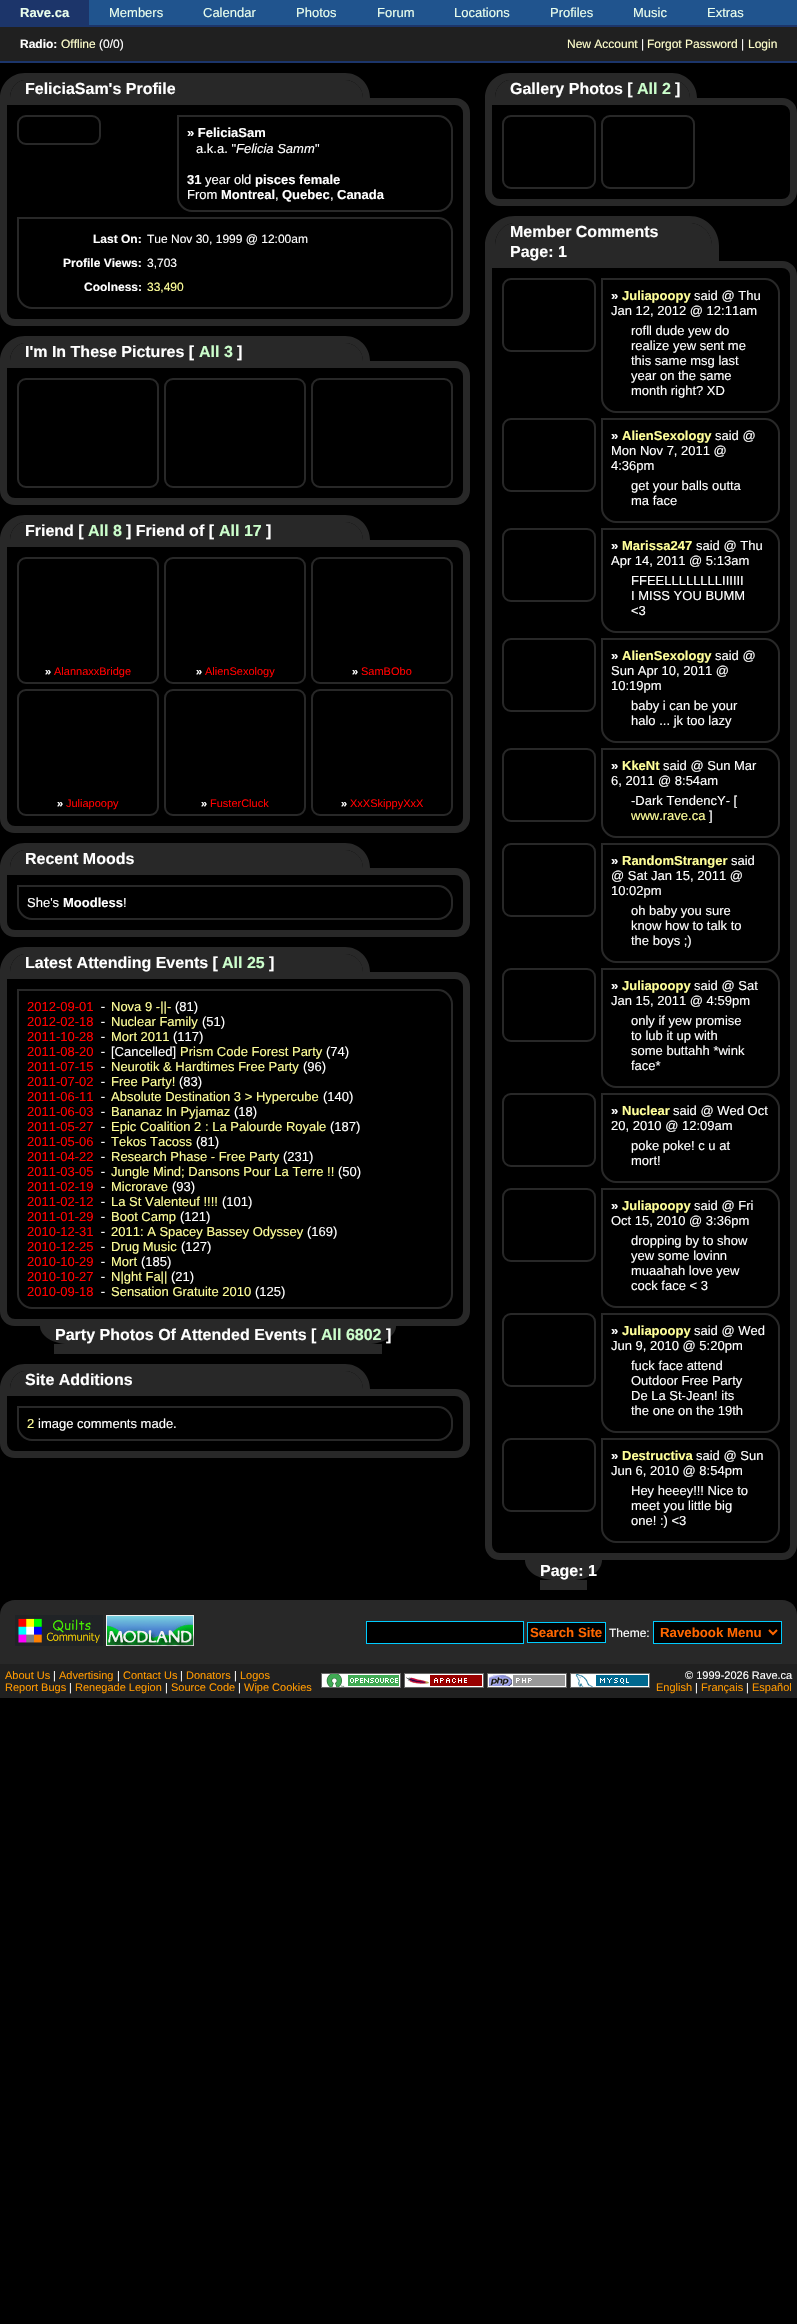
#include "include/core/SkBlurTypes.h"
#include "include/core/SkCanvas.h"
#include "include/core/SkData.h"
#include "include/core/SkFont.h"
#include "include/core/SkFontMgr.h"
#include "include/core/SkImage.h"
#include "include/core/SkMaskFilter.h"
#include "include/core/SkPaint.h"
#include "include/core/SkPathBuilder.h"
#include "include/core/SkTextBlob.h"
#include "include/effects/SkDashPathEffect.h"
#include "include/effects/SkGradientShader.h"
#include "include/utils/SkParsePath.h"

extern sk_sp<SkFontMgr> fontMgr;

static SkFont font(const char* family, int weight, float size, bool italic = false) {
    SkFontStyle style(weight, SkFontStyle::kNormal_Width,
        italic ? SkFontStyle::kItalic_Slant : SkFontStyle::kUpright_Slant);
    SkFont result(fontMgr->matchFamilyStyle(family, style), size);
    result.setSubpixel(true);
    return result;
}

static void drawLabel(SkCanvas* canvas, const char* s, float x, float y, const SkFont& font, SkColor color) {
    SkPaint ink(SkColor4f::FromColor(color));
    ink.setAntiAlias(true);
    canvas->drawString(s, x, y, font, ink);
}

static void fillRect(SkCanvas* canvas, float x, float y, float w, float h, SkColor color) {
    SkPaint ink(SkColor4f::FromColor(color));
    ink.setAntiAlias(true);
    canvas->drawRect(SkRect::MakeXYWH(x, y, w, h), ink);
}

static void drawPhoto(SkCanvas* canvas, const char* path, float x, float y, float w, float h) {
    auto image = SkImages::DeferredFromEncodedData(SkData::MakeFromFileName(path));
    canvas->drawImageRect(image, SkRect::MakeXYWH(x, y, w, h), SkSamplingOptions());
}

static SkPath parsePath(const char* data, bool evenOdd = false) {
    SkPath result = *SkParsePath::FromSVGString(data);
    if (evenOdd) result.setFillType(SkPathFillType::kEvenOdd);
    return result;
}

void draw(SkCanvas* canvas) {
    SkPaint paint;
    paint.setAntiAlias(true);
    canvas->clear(0xFF000000);
    fillRect(canvas, 89, 0, 708, 25, 0xFF20548E);
    fillRect(canvas, 0, 0, 89, 25, 0xFF1C356A);
    SkFont font1 = font("Liberation Sans", 700, 13);
    drawLabel(canvas, "Rave.ca", 20, 17, font1, 0xFFEAFFED);
    SkFont font2 = font("Liberation Sans", 400, 13);
    drawLabel(canvas, "Members", 109, 17, font2, 0xFFEAFFED);
    drawLabel(canvas, "Calendar", 203, 17, font2, 0xFFEAFFED);
    drawLabel(canvas, "Photos", 296, 17, font2, 0xFFEAFFED);
    drawLabel(canvas, "Forum", 377, 17, font2, 0xFFEAFFED);
    drawLabel(canvas, "Locations", 454, 17, font2, 0xFFEAFFED);
    drawLabel(canvas, "Profiles", 550, 17, font2, 0xFFEAFFED);
    drawLabel(canvas, "Music", 633, 17, font2, 0xFFEAFFED);
    drawLabel(canvas, "Extras", 707, 17, font2, 0xFFEAFFED);
    fillRect(canvas, 0, 25, 797, 2, 0xFF1C356A);
    fillRect(canvas, 0, 27, 797, 34, 0xFF202020);
    SkFont font3 = font("Liberation Sans", 700, 12);
    drawLabel(canvas, "Radio:", 20, 48, font3, 0xFFFFFFFF);
    SkFont font4 = font("Liberation Sans", 400, 12);
    drawLabel(canvas, "Offline", 61, 48, font4, 0xFFFFFFCC);
    drawLabel(canvas, "(0/0)", 99, 48, font4, 0xFFFFFFFF);
    drawLabel(canvas, "New Account", 567, 48, font4, 0xFFFFFFCC);
    drawLabel(canvas, "|", 641, 48, font4, 0xFFFFFFFF);
    drawLabel(canvas, "Forgot Password", 647, 48, font4, 0xFFFFFFCC);
    drawLabel(canvas, "|", 741, 48, font4, 0xFFFFFFFF);
    drawLabel(canvas, "Login", 748, 48, font4, 0xFFFFFFCC);
    fillRect(canvas, 0, 61, 797, 2, 0xFF1C356A);
    paint.setColor(0xFF282828);
    canvas->drawPath(parsePath("M25 80H345C355 80 363 88 363 98H10C10 88 17 80 25 80Z"), paint);
    canvas->drawPath(parsePath("M25 73H345C359 73 370 84 370 98H0C0 84 11 73 25 73ZM25 80H345C355 80 363 88 363 98H10C10 88 17 80 25 80Z", true), paint);
    SkFont font5 = font("Liberation Sans", 700, 16);
    drawLabel(canvas, "FeliciaSam's Profile", 25, 94, font5, 0xFFFFFFFF);
    paint.setStroke(true);
    paint.setStrokeWidth(7);
    canvas->drawPath(parsePath("M3.5 101.5H455C461.5 101.5 466.5 106.5 466.5 113V311C466.5 317.5 461.5 322.5 455 322.5H15C8.5 322.5 3.5 317.5 3.5 311Z"), paint);
    paint.setStrokeWidth(2);
    canvas->drawRoundRect(SkRect::MakeXYWH(18, 116, 82, 28), 8, 8, paint);
    canvas->drawPath(parsePath("M178 116H438C445.5 116 452 122.5 452 130V197C452 204.5 445.5 211 438 211H192C184.5 211 178 204.5 178 197Z"), paint);
    drawLabel(canvas, "» FeliciaSam", 187, 137, font1, 0xFFFFFFFF);
    drawLabel(canvas, "a.k.a. \"", 196, 153, font2, 0xFFFFFFFF);
    SkFont font6 = font("Liberation Sans", 400, 13, true);
    drawLabel(canvas, "Felicia Samm", 236, 153, font6, 0xFFFFFFFF);
    drawLabel(canvas, "\"", 315, 153, font2, 0xFFFFFFFF);
    drawLabel(canvas, "31", 187, 184, font1, 0xFFFFFFFF);
    drawLabel(canvas, "year old", 205, 184, font2, 0xFFFFFFFF);
    drawLabel(canvas, "pisces female", 255, 184, font1, 0xFFFFFFFF);
    drawLabel(canvas, "From", 187, 199, font2, 0xFFFFFFFF);
    drawLabel(canvas, "Montreal", 221, 199, font1, 0xFFFFFFFF);
    drawLabel(canvas, ",", 275, 199, font2, 0xFFFFFFFF);
    drawLabel(canvas, "Quebec", 282, 199, font1, 0xFFFFFFFF);
    drawLabel(canvas, ",", 330, 199, font2, 0xFFFFFFFF);
    drawLabel(canvas, "Canada", 337, 199, font1, 0xFFFFFFFF);
    canvas->drawPath(parsePath("M18 218H438C445.5 218 452 224.5 452 232V294C452 301.5 445.5 308 438 308H32C24.5 308 18 301.5 18 294Z"), paint);
    drawLabel(canvas, "Last On:", 93, 243, font3, 0xFFFFFFFF);
    drawLabel(canvas, "Tue Nov 30, 1999 @ 12:00am", 147, 243, font4, 0xFFFFFFFF);
    drawLabel(canvas, "Profile Views:", 63, 267, font3, 0xFFFFFFFF);
    drawLabel(canvas, "3,703", 147, 267, font4, 0xFFFFFFFF);
    drawLabel(canvas, "Coolness:", 84, 291, font3, 0xFFFFFFFF);
    drawLabel(canvas, "33,490", 147, 291, font4, 0xFFFFFF99);
    paint.setStroke(false);
    canvas->drawPath(parsePath("M25 343H345C355 343 363 351 363 361H10C10 351 17 343 25 343Z"), paint);
    canvas->drawPath(parsePath("M25 336H345C359 336 370 347 370 361H0C0 347 11 336 25 336ZM25 343H345C355 343 363 351 363 361H10C10 351 17 343 25 343Z", true), paint);
    drawLabel(canvas, "I'm In These Pictures [", 25, 357, font5, 0xFFFFFFFF);
    drawLabel(canvas, "All 3", 199, 357, font5, 0xFFCCFFCC);
    drawLabel(canvas, "]", 237, 357, font5, 0xFFFFFFFF);
    paint.setStroke(true);
    paint.setStrokeWidth(7);
    canvas->drawPath(parsePath("M3.5 364.5H455C461.5 364.5 466.5 369.5 466.5 376V490C466.5 496.5 461.5 501.5 455 501.5H15C8.5 501.5 3.5 496.5 3.5 490Z"), paint);
    paint.setStrokeWidth(2);
    canvas->drawRoundRect(SkRect::MakeXYWH(18, 379, 140, 108), 8, 8, paint);
    canvas->drawRoundRect(SkRect::MakeXYWH(165, 379, 140, 108), 8, 8, paint);
    canvas->drawRoundRect(SkRect::MakeXYWH(312, 379, 140, 108), 8, 8, paint);
    paint.setStroke(false);
    canvas->drawPath(parsePath("M25 522H345C355 522 363 530 363 540H10C10 530 17 522 25 522Z"), paint);
    canvas->drawPath(parsePath("M25 515H345C359 515 370 526 370 540H0C0 526 11 515 25 515ZM25 522H345C355 522 363 530 363 540H10C10 530 17 522 25 522Z", true), paint);
    drawLabel(canvas, "Friend [", 25, 536, font5, 0xFFFFFFFF);
    drawLabel(canvas, "All 8", 88, 536, font5, 0xFFCCFFCC);
    drawLabel(canvas, "] Friend of [", 126, 536, font5, 0xFFFFFFFF);
    drawLabel(canvas, "All 17", 219, 536, font5, 0xFFCCFFCC);
    drawLabel(canvas, "]", 266, 536, font5, 0xFFFFFFFF);
    paint.setStroke(true);
    paint.setStrokeWidth(7);
    canvas->drawPath(parsePath("M3.5 543.5H455C461.5 543.5 466.5 548.5 466.5 555V818C466.5 824.5 461.5 829.5 455 829.5H15C8.5 829.5 3.5 824.5 3.5 818Z"), paint);
    paint.setStrokeWidth(2);
    canvas->drawRoundRect(SkRect::MakeXYWH(18, 558, 140, 125), 8, 8, paint);
    SkFont font7 = font("Liberation Sans", 700, 11);
    drawLabel(canvas, "»", 45, 675, font7, 0xFFFFFFFF);
    SkFont font8 = font("Liberation Sans", 400, 11);
    drawLabel(canvas, "AlannaxxBridge", 54, 675, font8, 0xFFFF0000);
    canvas->drawRoundRect(SkRect::MakeXYWH(165, 558, 140, 125), 8, 8, paint);
    drawLabel(canvas, "»", 196, 675, font7, 0xFFFFFFFF);
    drawLabel(canvas, "AlienSexology", 205, 675, font8, 0xFFFF0000);
    canvas->drawRoundRect(SkRect::MakeXYWH(312, 558, 140, 125), 8, 8, paint);
    drawLabel(canvas, "»", 352, 675, font7, 0xFFFFFFFF);
    drawLabel(canvas, "SamBObo", 361, 675, font8, 0xFFFF0000);
    canvas->drawRoundRect(SkRect::MakeXYWH(18, 690, 140, 125), 8, 8, paint);
    drawLabel(canvas, "»", 57, 807, font7, 0xFFFFFFFF);
    drawLabel(canvas, "Juliapoopy", 66, 807, font8, 0xFFFF0000);
    canvas->drawRoundRect(SkRect::MakeXYWH(165, 690, 140, 125), 8, 8, paint);
    drawLabel(canvas, "»", 201, 807, font7, 0xFFFFFFFF);
    drawLabel(canvas, "FusterCluck", 210, 807, font8, 0xFFFF0000);
    canvas->drawRoundRect(SkRect::MakeXYWH(312, 690, 140, 125), 8, 8, paint);
    drawLabel(canvas, "»", 341, 807, font7, 0xFFFFFFFF);
    drawLabel(canvas, "XxXSkippyXxX", 350, 807, font8, 0xFFFF0000);
    paint.setStroke(false);
    canvas->drawPath(parsePath("M25 850H345C355 850 363 858 363 868H10C10 858 17 850 25 850Z"), paint);
    canvas->drawPath(parsePath("M25 843H345C359 843 370 854 370 868H0C0 854 11 843 25 843ZM25 850H345C355 850 363 858 363 868H10C10 858 17 850 25 850Z", true), paint);
    drawLabel(canvas, "Recent Moods", 25, 864, font5, 0xFFFFFFFF);
    paint.setStroke(true);
    paint.setStrokeWidth(7);
    canvas->drawPath(parsePath("M3.5 871.5H455C461.5 871.5 466.5 876.5 466.5 883V922C466.5 928.5 461.5 933.5 455 933.5H15C8.5 933.5 3.5 928.5 3.5 922Z"), paint);
    paint.setStrokeWidth(2);
    canvas->drawPath(parsePath("M18 886H438C445.5 886 452 892.5 452 900V905C452 912.5 445.5 919 438 919H32C24.5 919 18 912.5 18 905Z"), paint);
    drawLabel(canvas, "She's", 27, 907, font2, 0xFFFFFFFF);
    drawLabel(canvas, "Moodless", 63, 907, font1, 0xFFFFFFFF);
    drawLabel(canvas, "!", 123, 907, font2, 0xFFFFFFFF);
    paint.setStroke(false);
    canvas->drawPath(parsePath("M25 954H345C355 954 363 962 363 972H10C10 962 17 954 25 954Z"), paint);
    canvas->drawPath(parsePath("M25 947H345C359 947 370 958 370 972H0C0 958 11 947 25 947ZM25 954H345C355 954 363 962 363 972H10C10 962 17 954 25 954Z", true), paint);
    drawLabel(canvas, "Latest Attending Events [", 25, 968, font5, 0xFFFFFFFF);
    drawLabel(canvas, "All 25", 222, 968, font5, 0xFFCCFFCC);
    drawLabel(canvas, "]", 269, 968, font5, 0xFFFFFFFF);
    paint.setStroke(true);
    paint.setStrokeWidth(7);
    canvas->drawPath(parsePath("M3.5 975.5H455C461.5 975.5 466.5 980.5 466.5 987V1311C466.5 1317.5 461.5 1322.5 455 1322.5H15C8.5 1322.5 3.5 1317.5 3.5 1311Z"), paint);
    paint.setStrokeWidth(2);
    canvas->drawPath(parsePath("M18 990H438C445.5 990 452 996.5 452 1004V1294C452 1301.5 445.5 1308 438 1308H32C24.5 1308 18 1301.5 18 1294Z"), paint);
    drawLabel(canvas, "2012-09-01", 27, 1011, font2, 0xFFFF0000);
    SkFont font9 = font("DejaVu Sans Mono", 400, 13);
    drawLabel(canvas, "-", 99, 1011, font9, 0xFFFFFFFF);
    drawLabel(canvas, "Nova 9 -||-", 111, 1011, font2, 0xFFFFFF99);
    drawLabel(canvas, "(81)", 175, 1011, font2, 0xFFFFFFFF);
    drawLabel(canvas, "2012-02-18", 27, 1026, font2, 0xFFFF0000);
    drawLabel(canvas, "-", 99, 1026, font9, 0xFFFFFFFF);
    drawLabel(canvas, "Nuclear Family", 111, 1026, font2, 0xFFFFFF99);
    drawLabel(canvas, "(51)", 202, 1026, font2, 0xFFFFFFFF);
    drawLabel(canvas, "2011-10-28", 27, 1041, font2, 0xFFFF0000);
    drawLabel(canvas, "-", 99, 1041, font9, 0xFFFFFFFF);
    drawLabel(canvas, "Mort 2011", 111, 1041, font2, 0xFFFFFF99);
    drawLabel(canvas, "(117)", 173, 1041, font2, 0xFFFFFFFF);
    drawLabel(canvas, "2011-08-20", 27, 1056, font2, 0xFFFF0000);
    drawLabel(canvas, "-", 99, 1056, font9, 0xFFFFFFFF);
    drawLabel(canvas, "[Cancelled]", 111, 1056, font2, 0xFFFFFFFF);
    drawLabel(canvas, "Prism Code Forest Party", 180, 1056, font2, 0xFFFFFF99);
    drawLabel(canvas, "(74)", 326, 1056, font2, 0xFFFFFFFF);
    drawLabel(canvas, "2011-07-15", 27, 1071, font2, 0xFFFF0000);
    drawLabel(canvas, "-", 99, 1071, font9, 0xFFFFFFFF);
    drawLabel(canvas, "Neurotik & Hardtimes Free Party", 111, 1071, font2, 0xFFFFFF99);
    drawLabel(canvas, "(96)", 303, 1071, font2, 0xFFFFFFFF);
    drawLabel(canvas, "2011-07-02", 27, 1086, font2, 0xFFFF0000);
    drawLabel(canvas, "-", 99, 1086, font9, 0xFFFFFFFF);
    drawLabel(canvas, "Free Party!", 111, 1086, font2, 0xFFFFFF99);
    drawLabel(canvas, "(83)", 179, 1086, font2, 0xFFFFFFFF);
    drawLabel(canvas, "2011-06-11", 27, 1101, font2, 0xFFFF0000);
    drawLabel(canvas, "-", 99, 1101, font9, 0xFFFFFFFF);
    drawLabel(canvas, "Absolute Destination 3 > Hypercube", 111, 1101, font2, 0xFFFFFF99);
    drawLabel(canvas, "(140)", 323, 1101, font2, 0xFFFFFFFF);
    drawLabel(canvas, "2011-06-03", 27, 1116, font2, 0xFFFF0000);
    drawLabel(canvas, "-", 99, 1116, font9, 0xFFFFFFFF);
    drawLabel(canvas, "Bananaz In Pyjamaz", 111, 1116, font2, 0xFFFFFF99);
    drawLabel(canvas, "(18)", 234, 1116, font2, 0xFFFFFFFF);
    drawLabel(canvas, "2011-05-27", 27, 1131, font2, 0xFFFF0000);
    drawLabel(canvas, "-", 99, 1131, font9, 0xFFFFFFFF);
    drawLabel(canvas, "Epic Coalition 2 : La Palourde Royale", 111, 1131, font2, 0xFFFFFF99);
    drawLabel(canvas, "(187)", 330, 1131, font2, 0xFFFFFFFF);
    drawLabel(canvas, "2011-05-06", 27, 1146, font2, 0xFFFF0000);
    drawLabel(canvas, "-", 99, 1146, font9, 0xFFFFFFFF);
    drawLabel(canvas, "Tekos Tacoss", 111, 1146, font2, 0xFFFFFF99);
    drawLabel(canvas, "(81)", 196, 1146, font2, 0xFFFFFFFF);
    drawLabel(canvas, "2011-04-22", 27, 1161, font2, 0xFFFF0000);
    drawLabel(canvas, "-", 99, 1161, font9, 0xFFFFFFFF);
    drawLabel(canvas, "Research Phase - Free Party", 111, 1161, font2, 0xFFFFFF99);
    drawLabel(canvas, "(231)", 283, 1161, font2, 0xFFFFFFFF);
    drawLabel(canvas, "2011-03-05", 27, 1176, font2, 0xFFFF0000);
    drawLabel(canvas, "-", 99, 1176, font9, 0xFFFFFFFF);
    drawLabel(canvas, "Jungle Mind; Dansons Pour La Terre !!", 111, 1176, font2, 0xFFFFFF99);
    drawLabel(canvas, "(50)", 338, 1176, font2, 0xFFFFFFFF);
    drawLabel(canvas, "2011-02-19", 27, 1191, font2, 0xFFFF0000);
    drawLabel(canvas, "-", 99, 1191, font9, 0xFFFFFFFF);
    drawLabel(canvas, "Microrave", 111, 1191, font2, 0xFFFFFF99);
    drawLabel(canvas, "(93)", 172, 1191, font2, 0xFFFFFFFF);
    drawLabel(canvas, "2011-02-12", 27, 1206, font2, 0xFFFF0000);
    drawLabel(canvas, "-", 99, 1206, font9, 0xFFFFFFFF);
    drawLabel(canvas, "La St Valenteuf !!!!", 111, 1206, font2, 0xFFFFFF99);
    drawLabel(canvas, "(101)", 222, 1206, font2, 0xFFFFFFFF);
    drawLabel(canvas, "2011-01-29", 27, 1221, font2, 0xFFFF0000);
    drawLabel(canvas, "-", 99, 1221, font9, 0xFFFFFFFF);
    drawLabel(canvas, "Boot Camp", 111, 1221, font2, 0xFFFFFF99);
    drawLabel(canvas, "(121)", 180, 1221, font2, 0xFFFFFFFF);
    drawLabel(canvas, "2010-12-31", 27, 1236, font2, 0xFFFF0000);
    drawLabel(canvas, "-", 99, 1236, font9, 0xFFFFFFFF);
    drawLabel(canvas, "2011: A Spacey Bassey Odyssey", 111, 1236, font2, 0xFFFFFF99);
    drawLabel(canvas, "(169)", 307, 1236, font2, 0xFFFFFFFF);
    drawLabel(canvas, "2010-12-25", 27, 1251, font2, 0xFFFF0000);
    drawLabel(canvas, "-", 99, 1251, font9, 0xFFFFFFFF);
    drawLabel(canvas, "Drug Music", 111, 1251, font2, 0xFFFFFF99);
    drawLabel(canvas, "(127)", 181, 1251, font2, 0xFFFFFFFF);
    drawLabel(canvas, "2010-10-29", 27, 1266, font2, 0xFFFF0000);
    drawLabel(canvas, "-", 99, 1266, font9, 0xFFFFFFFF);
    drawLabel(canvas, "Mort", 111, 1266, font2, 0xFFFFFF99);
    drawLabel(canvas, "(185)", 141, 1266, font2, 0xFFFFFFFF);
    drawLabel(canvas, "2010-10-27", 27, 1281, font2, 0xFFFF0000);
    drawLabel(canvas, "-", 99, 1281, font9, 0xFFFFFFFF);
    drawLabel(canvas, "N|ght Fa||", 111, 1281, font2, 0xFFFFFF99);
    drawLabel(canvas, "(21)", 171, 1281, font2, 0xFFFFFFFF);
    drawLabel(canvas, "2010-09-18", 27, 1296, font2, 0xFFFF0000);
    drawLabel(canvas, "-", 99, 1296, font9, 0xFFFFFFFF);
    drawLabel(canvas, "Sensation Gratuite 2010", 111, 1296, font2, 0xFFFFFF99);
    drawLabel(canvas, "(125)", 255, 1296, font2, 0xFFFFFFFF);
    paint.setStroke(false);
    canvas->drawPath(parsePath("M40 1326H396C396 1336 383 1344 368 1344H68C53 1344 40 1336 40 1326Z"), paint);
    fillRect(canvas, 54, 1344, 328, 10, 0xFF282828);
    drawLabel(canvas, "Party Photos Of Attended Events [", 55, 1340, font5, 0xFFFFFFFF);
    drawLabel(canvas, "All 6802", 321, 1340, font5, 0xFFCCFFCC);
    drawLabel(canvas, "]", 386, 1340, font5, 0xFFFFFFFF);
    canvas->drawPath(parsePath("M25 1371H345C355 1371 363 1379 363 1389H10C10 1379 17 1371 25 1371Z"), paint);
    canvas->drawPath(parsePath("M25 1364H345C359 1364 370 1375 370 1389H0C0 1375 11 1364 25 1364ZM25 1371H345C355 1371 363 1379 363 1389H10C10 1379 17 1371 25 1371Z", true), paint);
    drawLabel(canvas, "Site Additions", 25, 1385, font5, 0xFFFFFFFF);
    paint.setStroke(true);
    paint.setStrokeWidth(7);
    canvas->drawPath(parsePath("M3.5 1392.5H455C461.5 1392.5 466.5 1397.5 466.5 1404V1443C466.5 1449.5 461.5 1454.5 455 1454.5H15C8.5 1454.5 3.5 1449.5 3.5 1443Z"), paint);
    paint.setStrokeWidth(2);
    canvas->drawPath(parsePath("M18 1407H438C445.5 1407 452 1413.5 452 1421V1426C452 1433.5 445.5 1440 438 1440H32C24.5 1440 18 1433.5 18 1426Z"), paint);
    drawLabel(canvas, "2", 27, 1428, font2, 0xFFFFFF99);
    drawLabel(canvas, "image comments made.", 38, 1428, font2, 0xFFFFFFFF);
    paint.setStroke(false);
    canvas->drawPath(parsePath("M510 80H672C682 80 690 88 690 98H495C495 88 502 80 510 80Z"), paint);
    canvas->drawPath(parsePath("M510 73H672C686 73 697 84 697 98H485C485 84 496 73 510 73ZM510 80H672C682 80 690 88 690 98H495C495 88 502 80 510 80Z", true), paint);
    drawLabel(canvas, "Gallery Photos [", 510, 94, font5, 0xFFFFFFFF);
    drawLabel(canvas, "All 2", 637, 94, font5, 0xFFCCFFCC);
    drawLabel(canvas, "]", 675, 94, font5, 0xFFFFFFFF);
    paint.setStroke(true);
    paint.setStrokeWidth(7);
    canvas->drawPath(parsePath("M488.5 101.5H782C788.5 101.5 793.5 106.5 793.5 113V191C793.5 197.5 788.5 202.5 782 202.5H500C493.5 202.5 488.5 197.5 488.5 191Z"), paint);
    paint.setStrokeWidth(2);
    canvas->drawRoundRect(SkRect::MakeXYWH(503, 116, 92, 72), 8, 8, paint);
    canvas->drawRoundRect(SkRect::MakeXYWH(602, 116, 92, 72), 8, 8, paint);
    paint.setStroke(false);
    canvas->drawPath(parsePath("M515 223H689C702 223 712 233 712 246V261H495V246C495 233 504 223 515 223Z"), paint);
    canvas->drawPath(parsePath("M515 216H689C706 216 719 229 719 246V261H485V246C485 229 498 216 515 216ZM515 223H689C702 223 712 233 712 246V261H495V246C495 233 504 223 515 223Z", true), paint);
    drawLabel(canvas, "Member Comments", 510, 237, font5, 0xFFFFFFFF);
    drawLabel(canvas, "Page: 1", 510, 257, font5, 0xFFFFFFFF);
    paint.setStroke(true);
    paint.setStrokeWidth(7);
    canvas->drawPath(parsePath("M488.5 264.5H782C788.5 264.5 793.5 269.5 793.5 276V1545C793.5 1551.5 788.5 1556.5 782 1556.5H500C493.5 1556.5 488.5 1551.5 488.5 1545Z"), paint);
    paint.setStrokeWidth(2);
    canvas->drawRoundRect(SkRect::MakeXYWH(503, 279, 92, 72), 8, 8, paint);
    canvas->drawPath(parsePath("M602 279H765C772.5 279 779 285.5 779 293V398C779 405.5 772.5 412 765 412H616C608.5 412 602 405.5 602 398Z"), paint);
    drawLabel(canvas, "»", 611, 300, font1, 0xFFFFFFFF);
    drawLabel(canvas, "Juliapoopy", 622, 300, font1, 0xFFFFFF99);
    drawLabel(canvas, "said @ Thu", 694, 300, font2, 0xFFFFFFFF);
    drawLabel(canvas, "Jan 12, 2012 @ 12:11am", 611, 315, font2, 0xFFFFFFFF);
    drawLabel(canvas, "rofll dude yew do", 631, 335, font2, 0xFFFFFFFF);
    drawLabel(canvas, "realize yew sent me", 631, 350, font2, 0xFFFFFFFF);
    drawLabel(canvas, "this same msg last", 631, 365, font2, 0xFFFFFFFF);
    drawLabel(canvas, "year on the same", 631, 380, font2, 0xFFFFFFFF);
    drawLabel(canvas, "month right? XD", 631, 395, font2, 0xFFFFFFFF);
    canvas->drawRoundRect(SkRect::MakeXYWH(503, 419, 92, 72), 8, 8, paint);
    canvas->drawPath(parsePath("M602 419H765C772.5 419 779 425.5 779 433V508C779 515.5 772.5 522 765 522H616C608.5 522 602 515.5 602 508Z"), paint);
    drawLabel(canvas, "»", 611, 440, font1, 0xFFFFFFFF);
    drawLabel(canvas, "AlienSexology", 622, 440, font1, 0xFFFFFF99);
    drawLabel(canvas, "said @", 715, 440, font2, 0xFFFFFFFF);
    drawLabel(canvas, "Mon Nov 7, 2011 @", 611, 455, font2, 0xFFFFFFFF);
    drawLabel(canvas, "4:36pm", 611, 470, font2, 0xFFFFFFFF);
    drawLabel(canvas, "get your balls outta", 631, 490, font2, 0xFFFFFFFF);
    drawLabel(canvas, "ma face", 631, 505, font2, 0xFFFFFFFF);
    canvas->drawRoundRect(SkRect::MakeXYWH(503, 529, 92, 72), 8, 8, paint);
    canvas->drawPath(parsePath("M602 529H765C772.5 529 779 535.5 779 543V618C779 625.5 772.5 632 765 632H616C608.5 632 602 625.5 602 618Z"), paint);
    drawLabel(canvas, "»", 611, 550, font1, 0xFFFFFFFF);
    drawLabel(canvas, "Marissa247", 622, 550, font1, 0xFFFFFF99);
    drawLabel(canvas, "said @ Thu", 696, 550, font2, 0xFFFFFFFF);
    drawLabel(canvas, "Apr 14, 2011 @ 5:13am", 611, 565, font2, 0xFFFFFFFF);
    drawLabel(canvas, "FFEELLLLLLLLIIIIII", 631, 585, font2, 0xFFFFFFFF);
    drawLabel(canvas, "I MISS YOU BUMM", 631, 600, font2, 0xFFFFFFFF);
    drawLabel(canvas, "<3", 631, 615, font2, 0xFFFFFFFF);
    canvas->drawRoundRect(SkRect::MakeXYWH(503, 639, 92, 72), 8, 8, paint);
    canvas->drawPath(parsePath("M602 639H765C772.5 639 779 645.5 779 653V728C779 735.5 772.5 742 765 742H616C608.5 742 602 735.5 602 728Z"), paint);
    drawLabel(canvas, "»", 611, 660, font1, 0xFFFFFFFF);
    drawLabel(canvas, "AlienSexology", 622, 660, font1, 0xFFFFFF99);
    drawLabel(canvas, "said @", 715, 660, font2, 0xFFFFFFFF);
    drawLabel(canvas, "Sun Apr 10, 2011 @", 611, 675, font2, 0xFFFFFFFF);
    drawLabel(canvas, "10:19pm", 611, 690, font2, 0xFFFFFFFF);
    drawLabel(canvas, "baby i can be your", 631, 710, font2, 0xFFFFFFFF);
    drawLabel(canvas, "halo ... jk too lazy", 631, 725, font2, 0xFFFFFFFF);
    canvas->drawRoundRect(SkRect::MakeXYWH(503, 749, 92, 72), 8, 8, paint);
    canvas->drawPath(parsePath("M602 749H765C772.5 749 779 755.5 779 763V823C779 830.5 772.5 837 765 837H616C608.5 837 602 830.5 602 823Z"), paint);
    drawLabel(canvas, "»", 611, 770, font1, 0xFFFFFFFF);
    drawLabel(canvas, "KkeNt", 622, 770, font1, 0xFFFFFF99);
    drawLabel(canvas, "said @ Sun Mar", 663, 770, font2, 0xFFFFFFFF);
    drawLabel(canvas, "6, 2011 @ 8:54am", 611, 785, font2, 0xFFFFFFFF);
    drawLabel(canvas, "-Dark TendencY- [", 631, 805, font2, 0xFFFFFFFF);
    drawLabel(canvas, "www.rave.ca", 631, 820, font2, 0xFFFFFF99);
    drawLabel(canvas, "]", 709, 820, font2, 0xFFFFFFFF);
    canvas->drawRoundRect(SkRect::MakeXYWH(503, 844, 92, 72), 8, 8, paint);
    canvas->drawPath(parsePath("M602 844H765C772.5 844 779 850.5 779 858V948C779 955.5 772.5 962 765 962H616C608.5 962 602 955.5 602 948Z"), paint);
    drawLabel(canvas, "»", 611, 865, font1, 0xFFFFFFFF);
    drawLabel(canvas, "RandomStranger", 622, 865, font1, 0xFFFFFF99);
    drawLabel(canvas, "said", 731, 865, font2, 0xFFFFFFFF);
    drawLabel(canvas, "@ Sat Jan 15, 2011 @", 611, 880, font2, 0xFFFFFFFF);
    drawLabel(canvas, "10:02pm", 611, 895, font2, 0xFFFFFFFF);
    drawLabel(canvas, "oh baby you sure", 631, 915, font2, 0xFFFFFFFF);
    drawLabel(canvas, "know how to talk to", 631, 930, font2, 0xFFFFFFFF);
    drawLabel(canvas, "the boys ;)", 631, 945, font2, 0xFFFFFFFF);
    canvas->drawRoundRect(SkRect::MakeXYWH(503, 969, 92, 72), 8, 8, paint);
    canvas->drawPath(parsePath("M602 969H765C772.5 969 779 975.5 779 983V1073C779 1080.5 772.5 1087 765 1087H616C608.5 1087 602 1080.5 602 1073Z"), paint);
    drawLabel(canvas, "»", 611, 990, font1, 0xFFFFFFFF);
    drawLabel(canvas, "Juliapoopy", 622, 990, font1, 0xFFFFFF99);
    drawLabel(canvas, "said @ Sat", 694, 990, font2, 0xFFFFFFFF);
    drawLabel(canvas, "Jan 15, 2011 @ 4:59pm", 611, 1005, font2, 0xFFFFFFFF);
    drawLabel(canvas, "only if yew promise", 631, 1025, font2, 0xFFFFFFFF);
    drawLabel(canvas, "to lub it up with", 631, 1040, font2, 0xFFFFFFFF);
    drawLabel(canvas, "some buttahh *wink", 631, 1055, font2, 0xFFFFFFFF);
    drawLabel(canvas, "face*", 631, 1070, font2, 0xFFFFFFFF);
    canvas->drawRoundRect(SkRect::MakeXYWH(503, 1094, 92, 72), 8, 8, paint);
    canvas->drawPath(parsePath("M602 1094H765C772.5 1094 779 1100.5 779 1108V1168C779 1175.5 772.5 1182 765 1182H616C608.5 1182 602 1175.5 602 1168Z"), paint);
    drawLabel(canvas, "»", 611, 1115, font1, 0xFFFFFFFF);
    drawLabel(canvas, "Nuclear", 622, 1115, font1, 0xFFFFFF99);
    drawLabel(canvas, "said @ Wed Oct", 673, 1115, font2, 0xFFFFFFFF);
    drawLabel(canvas, "20, 2010 @ 12:09am", 611, 1130, font2, 0xFFFFFFFF);
    drawLabel(canvas, "poke poke! c u at", 631, 1150, font2, 0xFFFFFFFF);
    drawLabel(canvas, "mort!", 631, 1165, font2, 0xFFFFFFFF);
    canvas->drawRoundRect(SkRect::MakeXYWH(503, 1189, 92, 72), 8, 8, paint);
    canvas->drawPath(parsePath("M602 1189H765C772.5 1189 779 1195.5 779 1203V1293C779 1300.5 772.5 1307 765 1307H616C608.5 1307 602 1300.5 602 1293Z"), paint);
    drawLabel(canvas, "»", 611, 1210, font1, 0xFFFFFFFF);
    drawLabel(canvas, "Juliapoopy", 622, 1210, font1, 0xFFFFFF99);
    drawLabel(canvas, "said @ Fri", 694, 1210, font2, 0xFFFFFFFF);
    drawLabel(canvas, "Oct 15, 2010 @ 3:36pm", 611, 1225, font2, 0xFFFFFFFF);
    drawLabel(canvas, "dropping by to show", 631, 1245, font2, 0xFFFFFFFF);
    drawLabel(canvas, "yew some lovinn", 631, 1260, font2, 0xFFFFFFFF);
    drawLabel(canvas, "muaahah love yew", 631, 1275, font2, 0xFFFFFFFF);
    drawLabel(canvas, "cock face < 3", 631, 1290, font2, 0xFFFFFFFF);
    canvas->drawRoundRect(SkRect::MakeXYWH(503, 1314, 92, 72), 8, 8, paint);
    canvas->drawPath(parsePath("M602 1314H765C772.5 1314 779 1320.5 779 1328V1418C779 1425.5 772.5 1432 765 1432H616C608.5 1432 602 1425.5 602 1418Z"), paint);
    drawLabel(canvas, "»", 611, 1335, font1, 0xFFFFFFFF);
    drawLabel(canvas, "Juliapoopy", 622, 1335, font1, 0xFFFFFF99);
    drawLabel(canvas, "said @ Wed", 694, 1335, font2, 0xFFFFFFFF);
    drawLabel(canvas, "Jun 9, 2010 @ 5:20pm", 611, 1350, font2, 0xFFFFFFFF);
    drawLabel(canvas, "fuck face attend", 631, 1370, font2, 0xFFFFFFFF);
    drawLabel(canvas, "Outdoor Free Party", 631, 1385, font2, 0xFFFFFFFF);
    drawLabel(canvas, "De La St-Jean! its", 631, 1400, font2, 0xFFFFFFFF);
    drawLabel(canvas, "the one on the 19th", 631, 1415, font2, 0xFFFFFFFF);
    canvas->drawRoundRect(SkRect::MakeXYWH(503, 1439, 92, 72), 8, 8, paint);
    canvas->drawPath(parsePath("M602 1439H765C772.5 1439 779 1445.5 779 1453V1528C779 1535.5 772.5 1542 765 1542H616C608.5 1542 602 1535.5 602 1528Z"), paint);
    drawLabel(canvas, "»", 611, 1460, font1, 0xFFFFFFFF);
    drawLabel(canvas, "Destructiva", 622, 1460, font1, 0xFFFFFF99);
    drawLabel(canvas, "said @ Sun", 696, 1460, font2, 0xFFFFFFFF);
    drawLabel(canvas, "Jun 6, 2010 @ 8:54pm", 611, 1475, font2, 0xFFFFFFFF);
    drawLabel(canvas, "Hey heeey!!! Nice to", 631, 1495, font2, 0xFFFFFFFF);
    drawLabel(canvas, "meet you little big", 631, 1510, font2, 0xFFFFFFFF);
    drawLabel(canvas, "one! :) <3", 631, 1525, font2, 0xFFFFFFFF);
    paint.setStroke(false);
    canvas->drawPath(parsePath("M525 1560H602C602 1571 589 1580 572 1580H555C538 1580 525 1571 525 1560Z"), paint);
    fillRect(canvas, 540, 1580, 47, 10, 0xFF282828);
    drawLabel(canvas, "Page: 1", 540, 1576, font5, 0xFFFFFFFF);
    canvas->drawPath(parsePath("M15 1600H782C790.5 1600 797 1606.5 797 1615V1664H0V1615C0 1606.5 6.5 1600 15 1600Z"), paint);
    drawPhoto(canvas, "assets/img1.png", 15, 1615, 88, 31);
    drawPhoto(canvas, "assets/img2.png", 106, 1615, 88, 31);
    paint.setColor(0xFF000000);
    canvas->drawRect(SkRect::MakeXYWH(366.5f, 1621.5f, 157, 22), paint);
    paint.setStroke(true);
    paint.setStrokeWidth(1);
    paint.setColor(0xFF00CCFF);
    canvas->drawRect(SkRect::MakeXYWH(366.5f, 1621.5f, 157, 22), paint);
    paint.setStroke(false);
    paint.setColor(0xFF000000);
    canvas->drawRect(SkRect::MakeXYWH(527.5f, 1622.5f, 78, 20), paint);
    paint.setStroke(true);
    paint.setColor(0xFF00CCFF);
    canvas->drawRect(SkRect::MakeXYWH(527.5f, 1622.5f, 78, 20), paint);
    SkFont font10 = font("Liberation Sans", 700, 13.25f);
    drawLabel(canvas, "Search Site", 530, 1637, font10, 0xFFFF6600);
    drawLabel(canvas, "Theme:", 609, 1637, font4, 0xFFFFFFFF);
    paint.setStroke(false);
    paint.setColor(0xFF000000);
    canvas->drawRect(SkRect::MakeXYWH(653.5f, 1621.5f, 128, 22), paint);
    paint.setStroke(true);
    paint.setColor(0xFF00CCFF);
    canvas->drawRect(SkRect::MakeXYWH(653.5f, 1621.5f, 128, 22), paint);
    paint.setStrokeWidth(2);
    paint.setColor(0xFFFF6600);
    canvas->drawPath(parsePath("M769 1630L773 1634L777 1630"), paint);
    drawLabel(canvas, "Ravebook Menu", 660, 1637, font10, 0xFFFF6600);
    fillRect(canvas, 0, 1664, 797, 34, 0xFF202020);
    drawLabel(canvas, "About Us", 5, 1679, font8, 0xFFFF9900);
    drawLabel(canvas, "|", 53, 1679, font8, 0xFFFFFFFF);
    drawLabel(canvas, "Advertising", 59, 1679, font8, 0xFFFF9900);
    drawLabel(canvas, "|", 117, 1679, font8, 0xFFFFFFFF);
    drawLabel(canvas, "Contact Us", 123, 1679, font8, 0xFFFF9900);
    drawLabel(canvas, "|", 180, 1679, font8, 0xFFFFFFFF);
    drawLabel(canvas, "Donators", 186, 1679, font8, 0xFFFF9900);
    drawLabel(canvas, "|", 234, 1679, font8, 0xFFFFFFFF);
    drawLabel(canvas, "Logos", 240, 1679, font8, 0xFFFF9900);
    drawLabel(canvas, "Report Bugs", 5, 1691, font8, 0xFFFF9900);
    drawLabel(canvas, "|", 69, 1691, font8, 0xFFFFFFFF);
    drawLabel(canvas, "Renegade Legion", 75, 1691, font8, 0xFFFF9900);
    drawLabel(canvas, "|", 165, 1691, font8, 0xFFFFFFFF);
    drawLabel(canvas, "Source Code", 171, 1691, font8, 0xFFFF9900);
    drawLabel(canvas, "|", 238, 1691, font8, 0xFFFFFFFF);
    drawLabel(canvas, "Wipe Cookies", 244, 1691, font8, 0xFFFF9900);
    drawPhoto(canvas, "assets/img3.png", 321, 1673, 80, 15);
    drawPhoto(canvas, "assets/img4.png", 404, 1673, 80, 15);
    drawPhoto(canvas, "assets/img5.png", 487, 1673, 80, 15);
    drawPhoto(canvas, "assets/img6.png", 570, 1673, 80, 15);
    drawLabel(canvas, "© 1999-2026 Rave.ca", 685, 1679, font8, 0xFFFFFFFF);
    drawLabel(canvas, "English", 656, 1691, font8, 0xFFFF9900);
    drawLabel(canvas, "|", 695, 1691, font8, 0xFFFFFFFF);
    drawLabel(canvas, "Français", 701, 1691, font8, 0xFFFF9900);
    drawLabel(canvas, "|", 746, 1691, font8, 0xFFFFFFFF);
    drawLabel(canvas, "Español", 752, 1691, font8, 0xFFFF9900);
}
